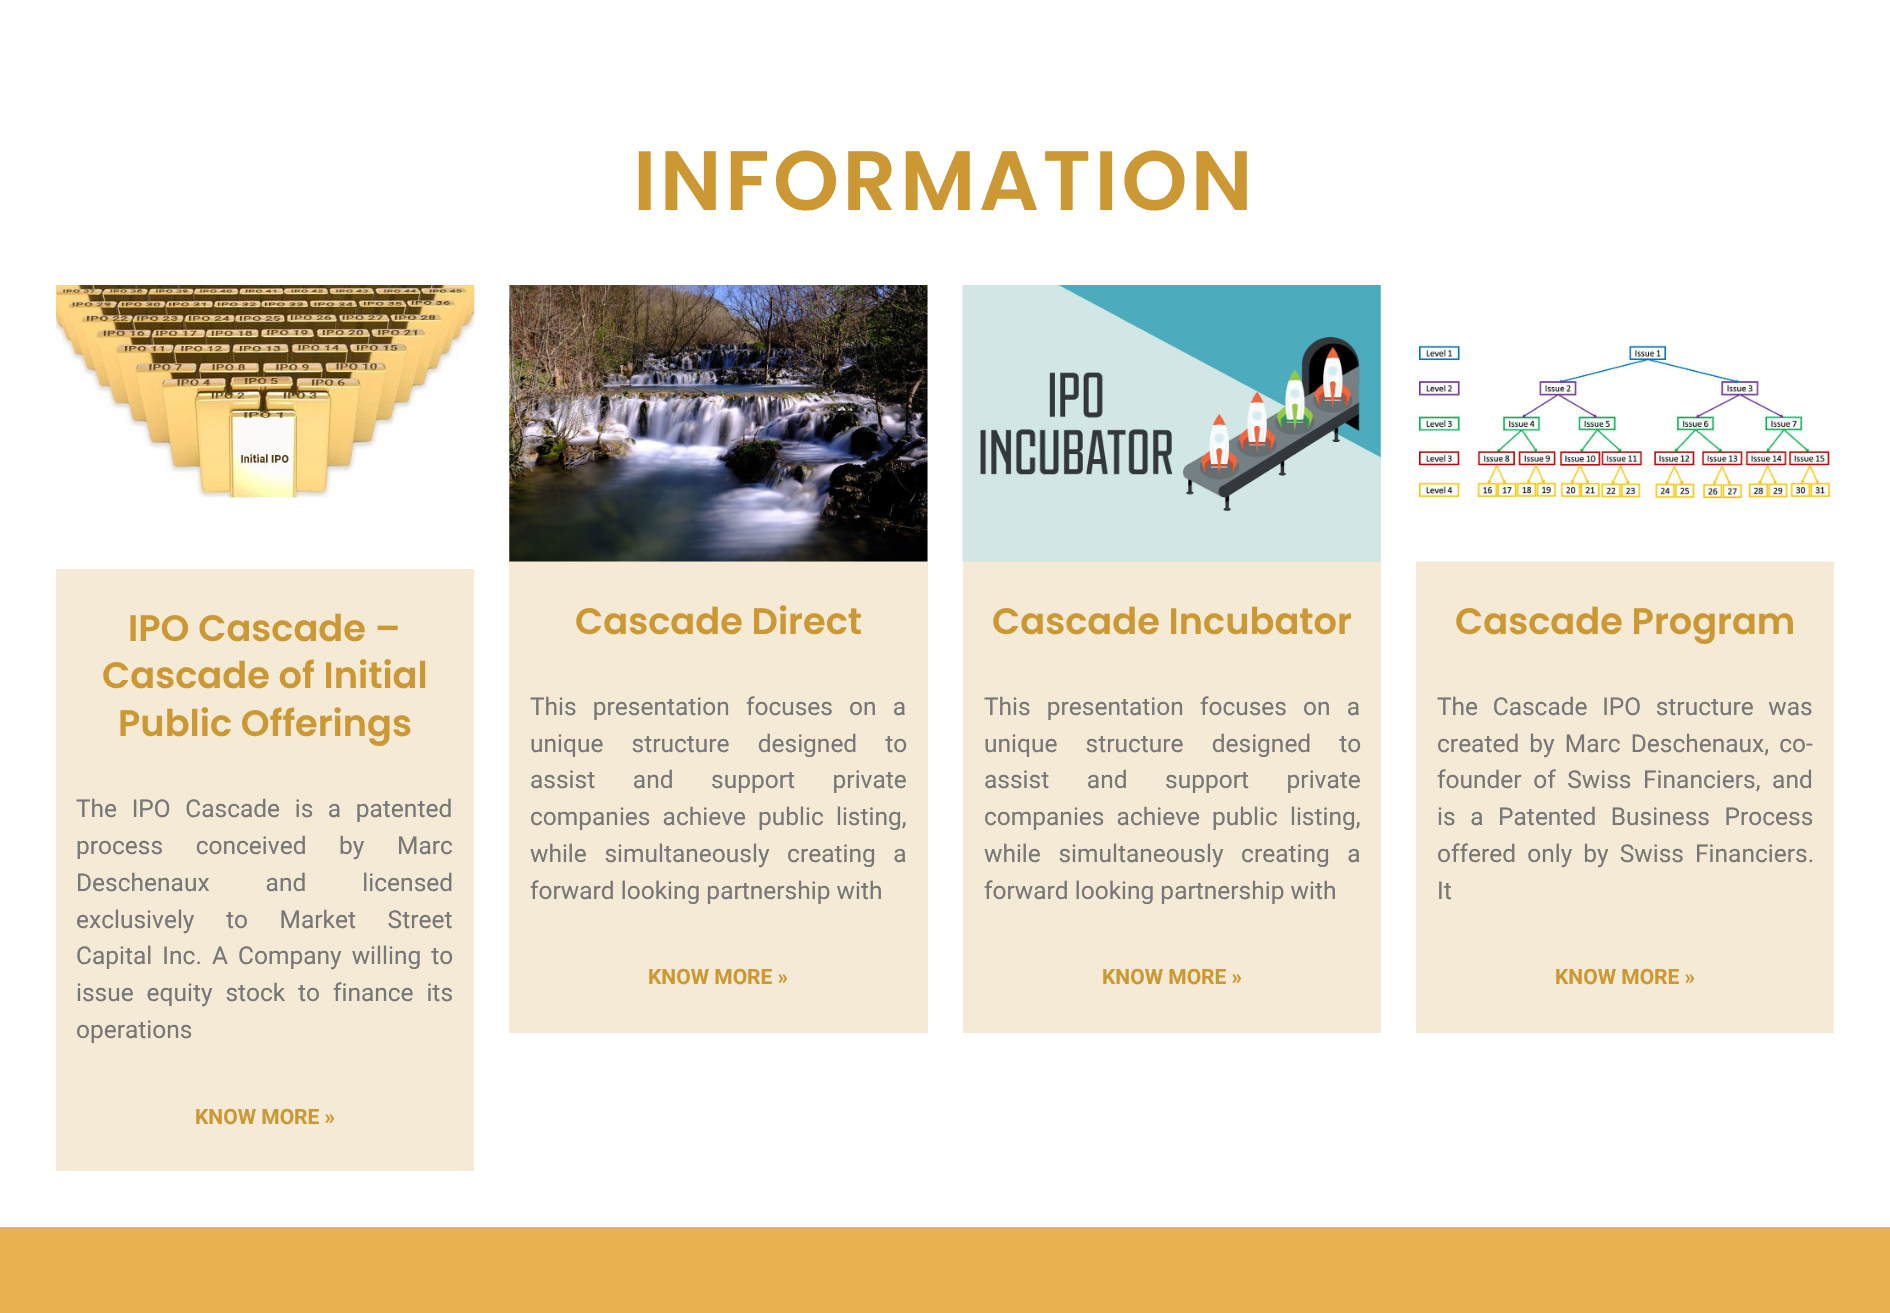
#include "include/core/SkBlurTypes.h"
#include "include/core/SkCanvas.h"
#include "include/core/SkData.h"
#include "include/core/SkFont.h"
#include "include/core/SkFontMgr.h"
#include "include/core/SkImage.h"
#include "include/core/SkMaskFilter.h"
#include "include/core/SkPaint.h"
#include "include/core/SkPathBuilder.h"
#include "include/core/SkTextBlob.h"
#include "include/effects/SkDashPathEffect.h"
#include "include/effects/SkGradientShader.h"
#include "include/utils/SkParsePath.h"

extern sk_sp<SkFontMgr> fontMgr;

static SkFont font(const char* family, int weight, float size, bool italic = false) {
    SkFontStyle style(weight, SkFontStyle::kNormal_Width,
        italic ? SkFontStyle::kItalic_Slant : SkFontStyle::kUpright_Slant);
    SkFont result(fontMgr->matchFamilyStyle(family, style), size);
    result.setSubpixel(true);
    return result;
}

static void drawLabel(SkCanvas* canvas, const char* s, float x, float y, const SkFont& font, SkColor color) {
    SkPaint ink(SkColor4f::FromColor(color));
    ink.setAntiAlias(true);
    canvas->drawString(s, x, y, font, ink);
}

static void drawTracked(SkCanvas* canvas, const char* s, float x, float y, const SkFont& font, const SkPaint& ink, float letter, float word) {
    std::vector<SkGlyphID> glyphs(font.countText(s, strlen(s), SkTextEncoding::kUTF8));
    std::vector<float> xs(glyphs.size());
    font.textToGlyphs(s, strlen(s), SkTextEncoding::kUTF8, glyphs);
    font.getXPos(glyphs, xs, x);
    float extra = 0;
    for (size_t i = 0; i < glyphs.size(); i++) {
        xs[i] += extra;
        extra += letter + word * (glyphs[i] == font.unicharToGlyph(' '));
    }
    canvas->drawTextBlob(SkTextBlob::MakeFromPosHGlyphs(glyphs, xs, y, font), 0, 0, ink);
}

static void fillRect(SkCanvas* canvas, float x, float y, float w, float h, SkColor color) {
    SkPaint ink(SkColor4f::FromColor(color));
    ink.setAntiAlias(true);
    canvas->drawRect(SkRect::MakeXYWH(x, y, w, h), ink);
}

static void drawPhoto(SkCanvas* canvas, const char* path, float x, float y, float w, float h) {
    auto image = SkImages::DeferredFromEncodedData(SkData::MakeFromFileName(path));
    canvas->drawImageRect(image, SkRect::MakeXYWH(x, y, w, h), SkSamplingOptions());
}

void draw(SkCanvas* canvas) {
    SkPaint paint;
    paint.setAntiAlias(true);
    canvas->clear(0xFFEAB150);
    fillRect(canvas, 0, 0, 1890, 1227, 0xFFFFFFFF);
    SkFont font1 = font("Poppins", 600, 84);
    paint.setColor(0xFFCB9833);
    drawTracked(canvas, "INFORMATION", 633, 210, font1, paint, 3.5f, 0);
    drawPhoto(canvas, "assets/img1.png", 56, 285, 419, 219);
    fillRect(canvas, 56, 569, 418, 602, 0xFFF5EAD5);
    SkFont font2 = font("Poppins", 600, 36.75f);
    drawLabel(canvas, "IPO Cascade –", 128, 641, font2, 0xFFCB9833);
    drawLabel(canvas, "Cascade of Initial", 102, 688, font2, 0xFFCB9833);
    drawLabel(canvas, "Public Offerings", 118, 736, font2, 0xFFCB9833);
    SkFont font3 = font("Roboto", 400, 24.5f);
    paint.setColor(0xFF777777);
    drawTracked(canvas, "The IPO Cascade is a patented", 76, 817, font3, paint, 0, 8.5f);
    drawTracked(canvas, "process conceived by Marc", 76, 854, font3, paint, 0, 26.5f);
    drawTracked(canvas, "Deschenaux and licensed", 76, 891, font3, paint, 0, 50);
    drawTracked(canvas, "exclusively to Market Street", 76, 928, font3, paint, 0, 25.5f);
    drawTracked(canvas, "Capital Inc. A Company willing to", 76, 964, font3, paint, 0, 4);
    drawTracked(canvas, "issue equity stock to finance its", 76, 1001, font3, paint, 0, 6.75f);
    drawLabel(canvas, "operations", 76, 1038, font3, 0xFF777777);
    SkFont font4 = font("Roboto", 700, 21);
    drawLabel(canvas, "KNOW MORE »", 195, 1124, font4, 0xFFCB9833);
    fillRect(canvas, 509, 285, 419, 748, 0xFFF5EAD5);
    drawPhoto(canvas, "assets/img2.png", 509, 285, 419, 277);
    drawLabel(canvas, "Cascade Direct", 575, 634, font2, 0xFFCB9833);
    drawTracked(canvas, "This presentation focuses on a", 530, 715, font3, paint, 0, 10);
    drawTracked(canvas, "unique structure designed to", 530, 752, font3, paint, 0, 22);
    drawTracked(canvas, "assist and support private", 530, 788, font3, paint, 0, 31.5f);
    drawTracked(canvas, "companies achieve public listing,", 530, 825, font3, paint, 0, 6);
    drawTracked(canvas, "while simultaneously creating a", 530, 862, font3, paint, 0, 11.5f);
    drawLabel(canvas, "forward looking partnership with", 530, 899, font3, 0xFF777777);
    drawLabel(canvas, "KNOW MORE »", 648, 984, font4, 0xFFCB9833);
    fillRect(canvas, 963, 285, 418, 748, 0xFFF5EAD5);
    drawPhoto(canvas, "assets/img3.png", 962, 285, 419, 277);
    drawLabel(canvas, "Cascade Incubator", 992, 634, font2, 0xFFCB9833);
    drawTracked(canvas, "This presentation focuses on a", 984, 715, font3, paint, 0, 10);
    drawTracked(canvas, "unique structure designed to", 984, 752, font3, paint, 0, 22);
    drawTracked(canvas, "assist and support private", 984, 788, font3, paint, 0, 31.5f);
    drawTracked(canvas, "companies achieve public listing,", 984, 825, font3, paint, 0, 6);
    drawTracked(canvas, "while simultaneously creating a", 984, 862, font3, paint, 0, 11.5f);
    drawLabel(canvas, "forward looking partnership with", 984, 899, font3, 0xFF777777);
    drawLabel(canvas, "KNOW MORE »", 1102, 984, font4, 0xFFCB9833);
    fillRect(canvas, 1416, 561, 418, 472, 0xFFF5EAD5);
    drawPhoto(canvas, "assets/img4.png", 1416, 285, 418, 277);
    drawLabel(canvas, "Cascade Program", 1455, 634, font2, 0xFFCB9833);
    drawTracked(canvas, "The Cascade IPO structure was", 1437, 715, font3, paint, 0, 8.5f);
    drawTracked(canvas, "created by Marc Deschenaux, co-", 1437, 752, font3, paint, 0, 4);
    drawTracked(canvas, "founder of Swiss Financiers, and", 1437, 788, font3, paint, 0, 5.5f);
    drawTracked(canvas, "is a Patented Business Process", 1437, 825, font3, paint, 0, 8.5f);
    drawTracked(canvas, "offered only by Swiss Financiers.", 1437, 862, font3, paint, 0, 5);
    drawLabel(canvas, "It", 1437, 899, font3, 0xFF777777);
    drawLabel(canvas, "KNOW MORE »", 1555, 984, font4, 0xFFCB9833);
}
